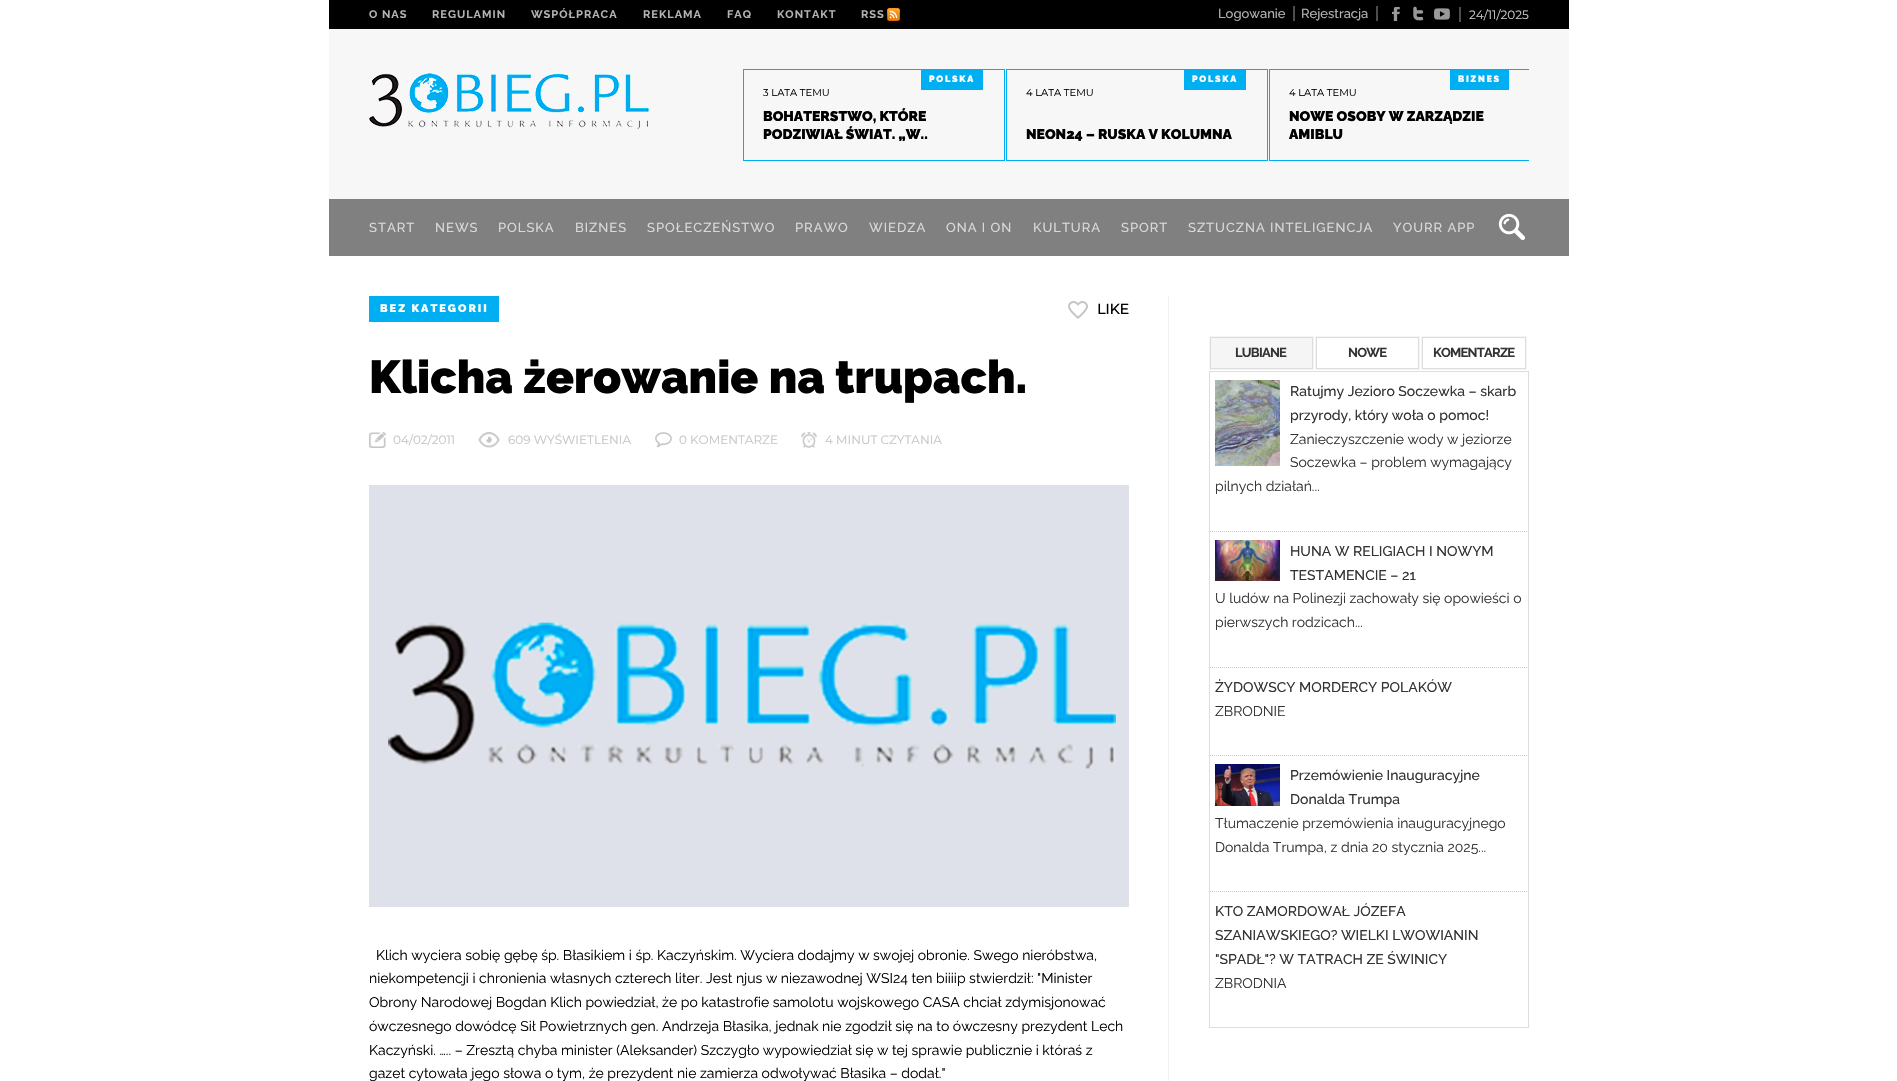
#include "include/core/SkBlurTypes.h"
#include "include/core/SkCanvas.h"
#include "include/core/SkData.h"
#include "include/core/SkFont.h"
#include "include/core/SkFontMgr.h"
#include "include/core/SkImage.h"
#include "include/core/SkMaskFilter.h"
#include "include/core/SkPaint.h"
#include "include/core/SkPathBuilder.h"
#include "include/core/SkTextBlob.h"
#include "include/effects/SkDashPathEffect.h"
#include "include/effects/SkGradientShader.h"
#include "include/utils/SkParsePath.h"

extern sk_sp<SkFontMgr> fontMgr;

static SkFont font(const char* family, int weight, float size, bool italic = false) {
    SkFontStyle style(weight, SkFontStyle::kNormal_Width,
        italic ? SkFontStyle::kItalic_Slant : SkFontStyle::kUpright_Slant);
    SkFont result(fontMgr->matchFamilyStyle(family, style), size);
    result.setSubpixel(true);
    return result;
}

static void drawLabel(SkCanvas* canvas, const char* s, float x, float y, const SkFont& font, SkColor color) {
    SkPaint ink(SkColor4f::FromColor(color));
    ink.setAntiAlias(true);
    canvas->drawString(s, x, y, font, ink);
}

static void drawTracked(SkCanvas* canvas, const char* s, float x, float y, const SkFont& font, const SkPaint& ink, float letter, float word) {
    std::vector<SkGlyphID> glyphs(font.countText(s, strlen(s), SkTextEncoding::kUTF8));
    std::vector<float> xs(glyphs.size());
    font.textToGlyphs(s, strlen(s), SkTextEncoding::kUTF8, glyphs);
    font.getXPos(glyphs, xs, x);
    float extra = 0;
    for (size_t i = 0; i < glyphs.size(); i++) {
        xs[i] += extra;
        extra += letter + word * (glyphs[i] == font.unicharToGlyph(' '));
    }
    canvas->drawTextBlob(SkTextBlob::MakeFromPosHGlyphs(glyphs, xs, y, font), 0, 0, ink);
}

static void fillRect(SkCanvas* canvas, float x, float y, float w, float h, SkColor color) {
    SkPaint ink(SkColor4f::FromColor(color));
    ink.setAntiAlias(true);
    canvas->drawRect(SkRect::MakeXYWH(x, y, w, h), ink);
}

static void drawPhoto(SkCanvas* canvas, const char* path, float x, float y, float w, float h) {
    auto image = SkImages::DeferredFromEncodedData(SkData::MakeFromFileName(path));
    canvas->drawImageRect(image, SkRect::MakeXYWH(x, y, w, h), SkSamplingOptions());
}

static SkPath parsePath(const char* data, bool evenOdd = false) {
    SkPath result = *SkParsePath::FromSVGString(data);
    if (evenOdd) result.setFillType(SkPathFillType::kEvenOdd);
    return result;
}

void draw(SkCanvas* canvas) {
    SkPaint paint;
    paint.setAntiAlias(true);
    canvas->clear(0xFFFFFFFF);
    fillRect(canvas, 329, 0, 1240, 29, 0xFF000000);
    SkFont font1 = font("Raleway", 700, 11);
    paint.setColor(0xFFB3B3B3);
    drawTracked(canvas, "O NAS", 369, 18, font1, paint, 1, 0);
    drawTracked(canvas, "REGULAMIN", 432, 18, font1, paint, 1, 0);
    drawTracked(canvas, "WSPÓŁPRACA", 531, 18, font1, paint, 1, 0);
    drawTracked(canvas, "REKLAMA", 643, 18, font1, paint, 1, 0);
    drawTracked(canvas, "FAQ", 727, 18, font1, paint, 1, 0);
    drawTracked(canvas, "KONTAKT", 777, 18, font1, paint, 1, 0);
    drawPhoto(canvas, "assets/img1.png", 886, 7, 15, 15);
    drawTracked(canvas, "RSS", 861, 18, font1, paint, 1, 0);
    fillRect(canvas, 1293, 6, 2, 15, 0xFF4D4D4D);
    SkFont font2 = font("Raleway", 500, 13);
    drawLabel(canvas, "Logowanie", 1218, 18, font2, 0xFFB3B3B3);
    fillRect(canvas, 1376, 6, 2, 15, 0xFF4D4D4D);
    drawLabel(canvas, "Rejestracja", 1301, 18, font2, 0xFFB3B3B3);
    drawPhoto(canvas, "assets/img2.png", 1392, 7, 8, 14);
    drawPhoto(canvas, "assets/img3.png", 1413, 6, 11, 15);
    drawPhoto(canvas, "assets/img4.png", 1434, 8, 16, 12);
    fillRect(canvas, 1459, 7, 2, 15, 0xFF4D4D4D);
    SkFont font3 = font("Montserrat", 100, 12);
    drawLabel(canvas, "24/11/2025", 1469, 19, font3, 0xFFCCCCCC);
    fillRect(canvas, 329, 29, 1240, 170, 0xFFF7F7F7);
    drawPhoto(canvas, "assets/img5.png", 369, 73, 280, 56);
    paint.setStroke(true);
    paint.setStrokeWidth(1);
    paint.setColor(0xFF00AFF1);
    canvas->drawRect(SkRect::MakeXYWH(743.5f, 69.5f, 261, 91), paint);
    fillRect(canvas, 921, 70, 62, 20, 0xFF00AFF1);
    SkFont font4 = font("Raleway", 900, 9);
    paint.setStroke(false);
    paint.setColor(0xFFFFFFFF);
    drawTracked(canvas, "POLSKA", 929, 82, font4, paint, 1.75f, 0);
    SkFont font5 = font("Montserrat", 100, 10);
    drawLabel(canvas, "3 LATA TEMU", 763, 96, font5, 0xFF000000);
    SkFont font6 = font("Raleway", 900, 14);
    drawLabel(canvas, "BOHATERSTWO, KTÓRE", 763, 121, font6, 0xFF000000);
    drawLabel(canvas, "PODZIWIAŁ ŚWIAT. „W..", 763, 139, font6, 0xFF000000);
    paint.setStroke(true);
    paint.setColor(0xFF00AFF1);
    canvas->drawRect(SkRect::MakeXYWH(1006.5f, 69.5f, 261, 91), paint);
    fillRect(canvas, 1184, 70, 62, 20, 0xFF00AFF1);
    paint.setStroke(false);
    paint.setColor(0xFFFFFFFF);
    drawTracked(canvas, "POLSKA", 1192, 82, font4, paint, 1.75f, 0);
    drawLabel(canvas, "4 LATA TEMU", 1026, 96, font5, 0xFF000000);
    drawLabel(canvas, "NEON24 – RUSKA V KOLUMNA", 1026, 139, font6, 0xFF000000);
    canvas->save();
    canvas->clipRect(SkRect::MakeXYWH(743, 69, 786, 100));
    paint.setStroke(true);
    paint.setColor(0xFF00AFF1);
    canvas->drawRect(SkRect::MakeXYWH(1269.5f, 69.5f, 261, 91), paint);
    canvas->restore();
    fillRect(canvas, 1450, 70, 59, 20, 0xFF00AFF1);
    paint.setStroke(false);
    paint.setColor(0xFFFFFFFF);
    drawTracked(canvas, "BIZNES", 1458, 82, font4, paint, 1.75f, 0);
    drawLabel(canvas, "4 LATA TEMU", 1289, 96, font5, 0xFF000000);
    drawLabel(canvas, "NOWE OSOBY W ZARZĄDZIE", 1289, 121, font6, 0xFF000000);
    drawLabel(canvas, "AMIBLU", 1289, 139, font6, 0xFF000000);
    fillRect(canvas, 329, 199, 1240, 57, 0xFF808080);
    paint.setColor(0xFFD9D9D9);
    drawTracked(canvas, "START", 369, 232, font2, paint, 1, 0);
    drawTracked(canvas, "NEWS", 435, 232, font2, paint, 1, 0);
    drawTracked(canvas, "POLSKA", 498, 232, font2, paint, 1, 0);
    drawTracked(canvas, "BIZNES", 575, 232, font2, paint, 1, 0);
    drawTracked(canvas, "SPOŁECZEŃSTWO", 647, 232, font2, paint, 1, 0);
    drawTracked(canvas, "PRAWO", 795, 232, font2, paint, 1, 0);
    drawTracked(canvas, "WIEDZA", 869, 232, font2, paint, 1, 0);
    drawTracked(canvas, "ONA I ON", 946, 232, font2, paint, 1, 0);
    drawTracked(canvas, "KULTURA", 1033, 232, font2, paint, 1, 0);
    drawTracked(canvas, "SPORT", 1121, 232, font2, paint, 1, 0);
    drawTracked(canvas, "SZTUCZNA INTELIGENCJA", 1188, 232, font2, paint, 1, 0);
    drawTracked(canvas, "YOURR APP", 1393, 232, font2, paint, 1, 0);
    drawPhoto(canvas, "assets/img6.png", 1498, 213, 27, 27);
    fillRect(canvas, 369, 296, 130, 26, 0xFF00AFF1);
    SkFont font7 = font("Raleway", 900, 11);
    paint.setColor(0xFFFFFFFF);
    drawTracked(canvas, "BEZ KATEGORII", 380, 312, font7, paint, 2, 0);
    drawPhoto(canvas, "assets/img7.png", 1068, 301, 20, 18);
    SkFont font8 = font("Montserrat", 700, 14);
    drawLabel(canvas, "LIKE", 1097, 314, font8, 0xFF000000);
    SkFont font9 = font("Raleway", 900, 46);
    drawLabel(canvas, "Klicha żerowanie na trupach.", 369, 393, font9, 0xFF000000);
    drawPhoto(canvas, "assets/img8.png", 369, 432, 17, 16);
    drawLabel(canvas, "04/02/2011", 393, 444, font3, 0xFFC5C5C5);
    drawPhoto(canvas, "assets/img9.png", 478, 432, 22, 16);
    drawLabel(canvas, "609 WYŚWIETLENIA", 508, 444, font3, 0xFFC5C5C5);
    drawPhoto(canvas, "assets/img10.png", 655, 432, 17, 16);
    drawLabel(canvas, "0 KOMENTARZE", 679, 444, font3, 0xFFC5C5C5);
    drawPhoto(canvas, "assets/img11.png", 801, 432, 16, 16);
    drawLabel(canvas, "4 MINUT CZYTANIA", 825, 444, font3, 0xFFC5C5C5);
    drawPhoto(canvas, "assets/img12.png", 369, 485, 760, 422);
    SkFont font10 = font("Raleway", 400, 14);
    drawLabel(canvas, "Klich wyciera sobię gębę śp. Błasikiem i śp. Kaczyńskim. Wyciera dodajmy w swojej obronie. Swego nieróbstwa,", 376, 960, font10, 0xFF000000);
    drawLabel(canvas, "niekompetencji i chronienia własnych czterech liter. Jest njus w niezawodnej WSI24 ten biiiip stwierdził: \"Minister", 369, 983, font10, 0xFF000000);
    drawLabel(canvas, "Obrony Narodowej Bogdan Klich powiedział, że po katastrofie samolotu wojskowego CASA chciał zdymisjonować", 369, 1007, font10, 0xFF000000);
    drawLabel(canvas, "ówczesnego dowódcę Sił Powietrznych gen. Andrzeja Błasika, jednak nie zgodził się na to ówczesny prezydent Lech", 369, 1031, font10, 0xFF000000);
    drawLabel(canvas, "Kaczyński. ….. – Zresztą chyba minister (Aleksander) Szczygło wypowiedział się w tej sprawie publicznie i któraś z", 369, 1055, font10, 0xFF000000);
    drawLabel(canvas, "gazet cytowała jego słowa o tym, że prezydent nie zamierza odwoływać Błasika – dodał.\"", 369, 1078, font10, 0xFF000000);
    fillRect(canvas, 1168, 296, 1, 785, 0xFFF1F1F1);
    paint.setStroke(true);
    paint.setColor(0xFFF5F5F5);
    canvas->drawRect(SkRect::MakeXYWH(1209.5f, 336.5f, 104, 33), paint);
    paint.setStroke(false);
    canvas->drawRect(SkRect::MakeXYWH(1210.5f, 337.5f, 102, 31), paint);
    paint.setStroke(true);
    paint.setColor(0xFFDDDDDD);
    canvas->drawRect(SkRect::MakeXYWH(1210.5f, 337.5f, 102, 31), paint);
    SkFont font11 = font("Raleway", 700, 13);
    paint.setStroke(false);
    paint.setColor(0xFF333333);
    drawTracked(canvas, "LUBIANE", 1235, 357, font11, paint, -0.75f, 0);
    paint.setStroke(true);
    paint.setColor(0xFFF5F5F5);
    canvas->drawRect(SkRect::MakeXYWH(1315.5f, 336.5f, 104, 33), paint);
    paint.setColor(0xFFDDDDDD);
    canvas->drawRect(SkRect::MakeXYWH(1316.5f, 337.5f, 102, 31), paint);
    paint.setStroke(false);
    paint.setColor(0xFF333333);
    drawTracked(canvas, "NOWE", 1348, 357, font11, paint, -0.75f, 0);
    paint.setStroke(true);
    paint.setColor(0xFFF5F5F5);
    canvas->drawRect(SkRect::MakeXYWH(1421.5f, 336.5f, 105, 33), paint);
    paint.setColor(0xFFDDDDDD);
    canvas->drawRect(SkRect::MakeXYWH(1422.5f, 337.5f, 103, 31), paint);
    paint.setStroke(false);
    paint.setColor(0xFF333333);
    drawTracked(canvas, "KOMENTARZE", 1433, 357, font11, paint, -0.75f, 0);
    paint.setStroke(true);
    paint.setColor(0xFFDDDDDD);
    canvas->drawRect(SkRect::MakeXYWH(1209.5f, 371.5f, 319, 656), paint);
    paint.setColor(0xFFCCCCCC);
    paint.setPathEffect(SkDashPathEffect::Make({{1, 1}}, 0));
    canvas->drawPath(parsePath("M1210 531.5H1528"), paint);
    paint.setPathEffect(nullptr);
    drawPhoto(canvas, "assets/img13.png", 1215, 380, 65, 86);
    SkFont font12 = font("Raleway", 500, 14);
    drawLabel(canvas, "Ratujmy Jezioro Soczewka – skarb", 1290, 396, font12, 0xFF333333);
    drawLabel(canvas, "przyrody, który woła o pomoc!", 1290, 420, font12, 0xFF333333);
    drawLabel(canvas, "Zanieczyszczenie wody w jeziorze", 1290, 444, font10, 0xFF333333);
    drawLabel(canvas, "Soczewka – problem wymagający", 1290, 467, font10, 0xFF333333);
    drawLabel(canvas, "pilnych działań...", 1215, 491, font10, 0xFF333333);
    paint.setPathEffect(SkDashPathEffect::Make({{1, 1}}, 0));
    canvas->drawPath(parsePath("M1210 667.5H1528"), paint);
    paint.setPathEffect(nullptr);
    drawPhoto(canvas, "assets/img14.png", 1215, 540, 65, 41);
    drawLabel(canvas, "HUNA W RELIGIACH I NOWYM", 1290, 556, font12, 0xFF333333);
    drawLabel(canvas, "TESTAMENCIE – 21", 1290, 580, font12, 0xFF333333);
    drawLabel(canvas, "U ludów na Polinezji zachowały się opowieści o", 1215, 603, font10, 0xFF333333);
    drawLabel(canvas, "pierwszych rodzicach...", 1215, 627, font10, 0xFF333333);
    paint.setPathEffect(SkDashPathEffect::Make({{1, 1}}, 0));
    canvas->drawPath(parsePath("M1210 755.5H1528"), paint);
    paint.setPathEffect(nullptr);
    drawLabel(canvas, "ŻYDOWSCY MORDERCY POLAKÓW", 1215, 692, font12, 0xFF333333);
    drawLabel(canvas, "ZBRODNIE", 1215, 716, font10, 0xFF333333);
    paint.setPathEffect(SkDashPathEffect::Make({{1, 1}}, 0));
    canvas->drawPath(parsePath("M1210 891.5H1528"), paint);
    paint.setPathEffect(nullptr);
    drawPhoto(canvas, "assets/img15.png", 1215, 764, 65, 42);
    drawLabel(canvas, "Przemówienie Inauguracyjne", 1290, 780, font12, 0xFF333333);
    drawLabel(canvas, "Donalda Trumpa", 1290, 804, font12, 0xFF333333);
    drawLabel(canvas, "Tłumaczenie przemówienia inauguracyjnego", 1215, 828, font10, 0xFF333333);
    drawLabel(canvas, "Donalda Trumpa, z dnia 20 stycznia 2025...", 1215, 852, font10, 0xFF333333);
    drawLabel(canvas, "KTO ZAMORDOWAŁ JÓZEFA", 1215, 916, font12, 0xFF333333);
    drawLabel(canvas, "SZANIAWSKIEGO? WIELKI LWOWIANIN", 1215, 940, font12, 0xFF333333);
    drawLabel(canvas, "\"SPADŁ\"? W TATRACH ZE ŚWINICY", 1215, 964, font12, 0xFF333333);
    drawLabel(canvas, "ZBRODNIA", 1215, 988, font10, 0xFF333333);
}
